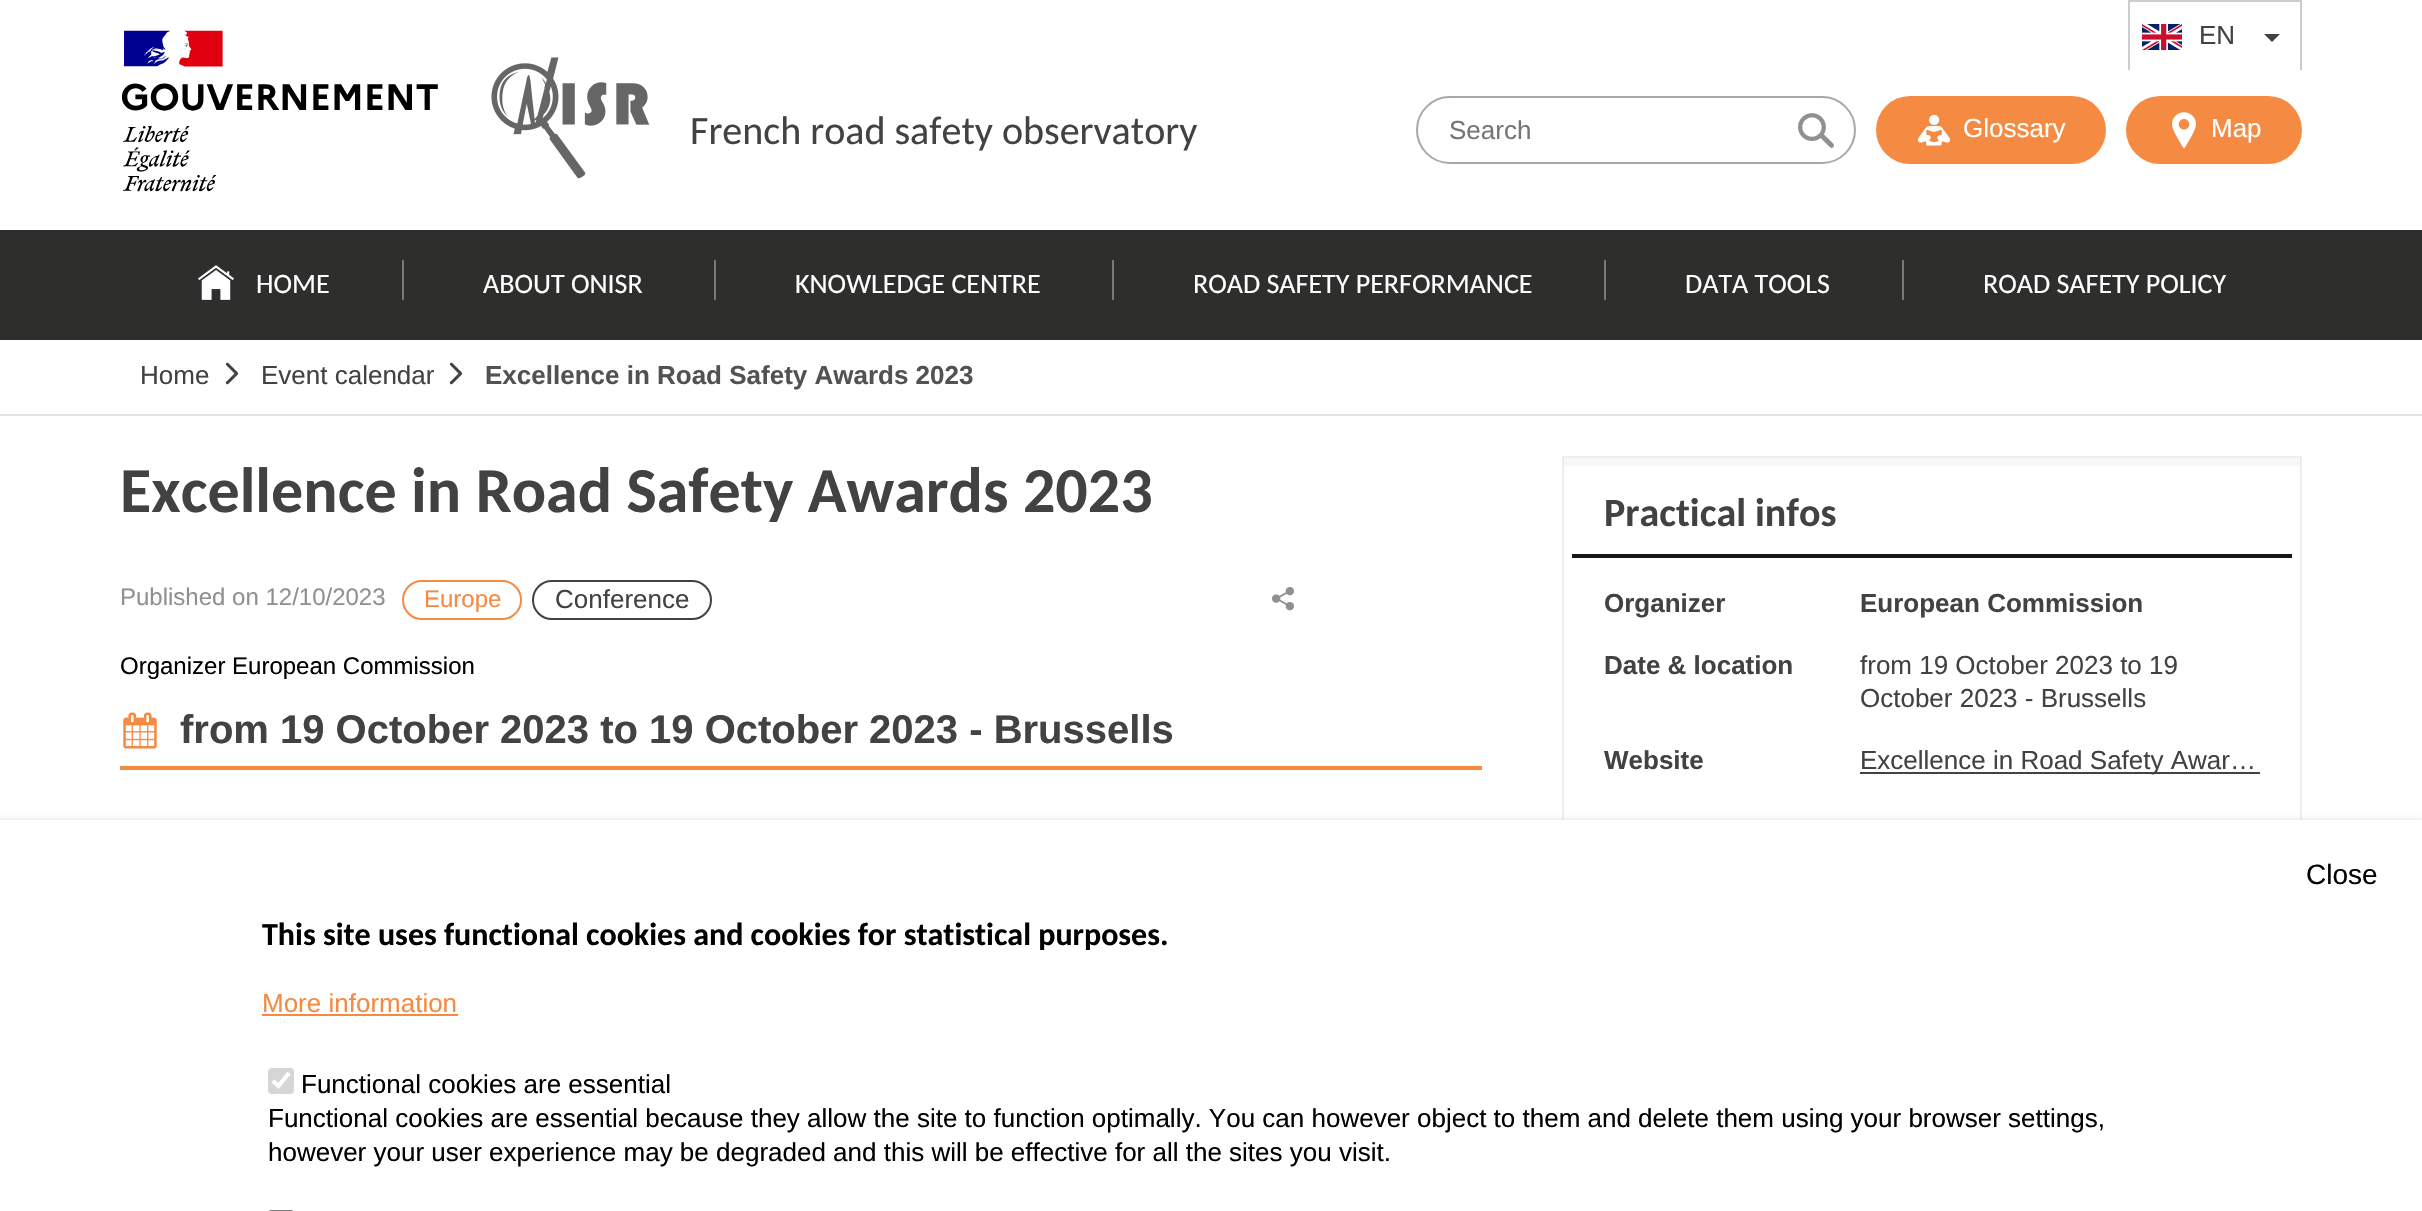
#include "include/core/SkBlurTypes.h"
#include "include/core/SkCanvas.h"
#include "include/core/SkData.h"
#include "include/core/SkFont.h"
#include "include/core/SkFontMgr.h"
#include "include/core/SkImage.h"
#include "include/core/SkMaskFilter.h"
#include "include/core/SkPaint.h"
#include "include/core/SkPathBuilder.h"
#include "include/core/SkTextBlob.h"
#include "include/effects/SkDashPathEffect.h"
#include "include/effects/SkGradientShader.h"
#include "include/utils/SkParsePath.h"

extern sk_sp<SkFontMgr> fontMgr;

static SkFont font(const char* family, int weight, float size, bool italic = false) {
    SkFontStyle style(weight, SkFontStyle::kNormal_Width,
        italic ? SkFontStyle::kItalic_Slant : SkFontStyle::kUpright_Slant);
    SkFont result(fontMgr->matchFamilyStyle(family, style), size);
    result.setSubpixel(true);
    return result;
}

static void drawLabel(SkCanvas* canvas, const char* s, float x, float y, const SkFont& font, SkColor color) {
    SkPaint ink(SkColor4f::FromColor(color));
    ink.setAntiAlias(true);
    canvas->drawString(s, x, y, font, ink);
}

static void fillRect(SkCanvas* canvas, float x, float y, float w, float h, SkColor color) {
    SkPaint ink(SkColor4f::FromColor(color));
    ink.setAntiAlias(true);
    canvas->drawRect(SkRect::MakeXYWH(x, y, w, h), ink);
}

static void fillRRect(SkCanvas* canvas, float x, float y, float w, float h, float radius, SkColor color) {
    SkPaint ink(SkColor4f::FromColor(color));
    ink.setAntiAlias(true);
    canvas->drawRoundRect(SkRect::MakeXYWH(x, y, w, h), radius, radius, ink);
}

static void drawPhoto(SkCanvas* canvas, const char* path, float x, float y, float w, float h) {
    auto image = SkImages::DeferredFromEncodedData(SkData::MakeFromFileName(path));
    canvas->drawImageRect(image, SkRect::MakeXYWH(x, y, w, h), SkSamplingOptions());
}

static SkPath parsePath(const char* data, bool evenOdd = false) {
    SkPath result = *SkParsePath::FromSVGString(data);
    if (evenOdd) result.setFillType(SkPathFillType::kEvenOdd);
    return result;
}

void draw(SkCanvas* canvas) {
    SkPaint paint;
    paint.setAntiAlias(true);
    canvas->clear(0xFFFFFFFF);
    canvas->save();
    canvas->clipRect(SkRect::MakeXYWH(2128, 0, 174, 70));
    paint.setStroke(true);
    paint.setStrokeWidth(2);
    paint.setColor(0xFFCCCCCC);
    canvas->drawRect(SkRect::MakeXYWH(2129, 1, 172, 72), paint);
    canvas->restore();
    drawPhoto(canvas, "assets/img1.png", 2142, 24, 40, 26);
    SkFont font1 = font("Liberation Sans", 400, 26);
    drawLabel(canvas, "EN", 2199, 44, font1, 0xFF424242);
    paint.setStroke(false);
    paint.setColor(0xFF424242);
    canvas->drawPath(parsePath("M2264 34H2280L2272 42Z"), paint);
    drawPhoto(canvas, "assets/img2.png", 121, 30, 317, 162);
    drawPhoto(canvas, "assets/img3.png", 491, 57, 159, 122);
    SkFont font2 = font("Carlito", 400, 40);
    drawLabel(canvas, "French road safety observatory", 690, 144, font2, 0xFF424242);
    paint.setStroke(true);
    paint.setColor(0xFFA4A9AE);
    canvas->drawRoundRect(SkRect::MakeXYWH(1417, 97, 438, 66), 33, 33, paint);
    drawLabel(canvas, "Search", 1449, 139, font1, 0xFF757575);
    drawPhoto(canvas, "assets/img4.png", 1798, 113, 36, 35);
    fillRRect(canvas, 1876, 96, 230, 68, 34, 0xFFF58A42);
    drawPhoto(canvas, "assets/img5.png", 1917, 114, 34, 32);
    drawLabel(canvas, "Glossary", 1963, 137, font1, 0xFFFFFFFF);
    fillRRect(canvas, 2126, 96, 176, 68, 34, 0xFFF58A42);
    drawPhoto(canvas, "assets/img6.png", 2172, 112, 24, 37);
    drawLabel(canvas, "Map", 2211, 137, font1, 0xFFFFFFFF);
    fillRect(canvas, 0, 230, 2422, 110, 0xFF2E2E2D);
    drawPhoto(canvas, "assets/img7.png", 198, 265, 36, 35);
    SkFont font3 = font("Carlito", 400, 28);
    drawLabel(canvas, "HOME", 256, 293, font3, 0xFFFFFFFF);
    fillRect(canvas, 402, 260, 2, 40, 0xFF78787A);
    drawLabel(canvas, "ABOUT ONISR", 483, 293, font3, 0xFFFFFFFF);
    fillRect(canvas, 714, 260, 2, 40, 0xFF78787A);
    drawLabel(canvas, "KNOWLEDGE CENTRE", 795, 293, font3, 0xFFFFFFFF);
    fillRect(canvas, 1112, 260, 2, 40, 0xFF78787A);
    drawLabel(canvas, "ROAD SAFETY PERFORMANCE", 1193, 293, font3, 0xFFFFFFFF);
    fillRect(canvas, 1604, 260, 2, 40, 0xFF78787A);
    drawLabel(canvas, "DATA TOOLS", 1685, 293, font3, 0xFFFFFFFF);
    fillRect(canvas, 1902, 260, 2, 40, 0xFF78787A);
    drawLabel(canvas, "ROAD SAFETY POLICY", 1983, 293, font3, 0xFFFFFFFF);
    fillRect(canvas, 0, 414, 2422, 2, 0xFFE4E4E4);
    drawLabel(canvas, "Home", 140, 384, font1, 0xFF424242);
    drawPhoto(canvas, "assets/img8.png", 225, 362, 14, 23);
    drawLabel(canvas, "Event calendar", 261, 384, font1, 0xFF424242);
    drawPhoto(canvas, "assets/img8.png", 449, 362, 14, 23);
    SkFont font4 = font("Liberation Sans", 700, 26);
    drawLabel(canvas, "Excellence in Road Safety Awards 2023", 485, 384, font4, 0xFF535151);
    SkFont font5 = font("Carlito", 700, 64);
    drawLabel(canvas, "Excellence in Road Safety Awards 2023", 120, 512, font5, 0xFF424242);
    SkFont font6 = font("Liberation Sans", 400, 24);
    drawLabel(canvas, "Published on 12/10/2023", 120, 605, font6, 0xFF928F8F);
    paint.setColor(0xFFF58A42);
    canvas->drawRoundRect(SkRect::MakeXYWH(403, 581, 118, 38), 19, 19, paint);
    drawLabel(canvas, "Europe", 424, 607, font6, 0xFFF58A42);
    paint.setColor(0xFF424242);
    canvas->drawRoundRect(SkRect::MakeXYWH(533, 581, 178, 38), 19, 19, paint);
    drawLabel(canvas, "Conference", 555, 608, font1, 0xFF424242);
    drawPhoto(canvas, "assets/img9.png", 1272, 586, 22, 25);
    drawLabel(canvas, "Organizer European Commission", 120, 674, font6, 0xFF000000);
    fillRect(canvas, 120, 766, 1362, 4, 0xFFF58A42);
    drawPhoto(canvas, "assets/img10.png", 123, 712, 34, 37);
    SkFont font7 = font("Liberation Sans", 700, 40);
    drawLabel(canvas, "from 19 October 2023 to 19 October 2023 - Brussells", 180, 743, font7, 0xFF424242);
    paint.setColor(0xFFEEEEEE);
    canvas->drawRect(SkRect::MakeXYWH(1563, 457, 738, 376), paint);
    fillRect(canvas, 1564, 458, 736, 8, 0xFFF7F7F7);
    SkFont font8 = font("Carlito", 700, 40);
    drawLabel(canvas, "Practical infos", 1604, 526, font8, 0xFF424242);
    fillRect(canvas, 1572, 554, 720, 4, 0xFF161616);
    drawLabel(canvas, "Organizer", 1604, 612, font4, 0xFF424242);
    drawLabel(canvas, "European Commission", 1860, 612, font4, 0xFF424242);
    drawLabel(canvas, "Date & location", 1604, 674, font4, 0xFF424242);
    drawLabel(canvas, "from 19 October 2023 to 19", 1860, 674, font1, 0xFF424242);
    drawLabel(canvas, "October 2023 - Brussells", 1860, 707, font1, 0xFF424242);
    drawLabel(canvas, "Website", 1604, 769, font4, 0xFF424242);
    fillRect(canvas, 1860, 772, 400, 2, 0xFF424242);
    drawLabel(canvas, "Excellence in Road Safety Awar…", 1860, 769, font1, 0xFF424242);
    paint.setStroke(false);
    paint.setColor(0x293C4043);
    paint.setMaskFilter(SkMaskFilter::MakeBlur(kNormal_SkBlurStyle, 3));
    canvas->drawRect(SkRect::MakeXYWH(-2, 820, 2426, 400), paint);
    paint.setMaskFilter(nullptr);
    fillRect(canvas, 0, 820, 2422, 391, 0xFFFFFFFF);
    SkFont font9 = font("Liberation Sans", 400, 28);
    drawLabel(canvas, "Close", 2306, 884, font9, 0xFF000000);
    SkFont font10 = font("Carlito", 700, 32);
    drawLabel(canvas, "This site uses functional cookies and cookies for statistical purposes.", 262, 945, font10, 0xFF000000);
    drawLabel(canvas, "More information", 262, 1012, font1, 0xFFF58A42);
    fillRect(canvas, 262, 1014, 196, 2, 0xFFF58A42);
    fillRRect(canvas, 268, 1068, 26, 26, 4, 0xFFD6D6D6);
    paint.setStroke(true);
    paint.setStrokeWidth(4.2f);
    paint.setColor(0xFFFFFFFF);
    canvas->drawPath(parsePath("M273 1081L278.5 1086L289 1073"), paint);
    drawLabel(canvas, "Functional cookies are essential", 301, 1093, font1, 0xFF000000);
    drawLabel(canvas, "Functional cookies are essential because they allow the site to function optimally. You can however object to them and delete them using your browser settings,", 268, 1127, font1, 0xFF000000);
    drawLabel(canvas, "however your user experience may be degraded and this will be effective for all the sites you visit.", 268, 1161, font1, 0xFF000000);
    paint.setStrokeWidth(2);
    paint.setColor(0xFF767676);
    canvas->drawRoundRect(SkRect::MakeXYWH(269, 1211, 24, 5), 3, 3, paint);
}
